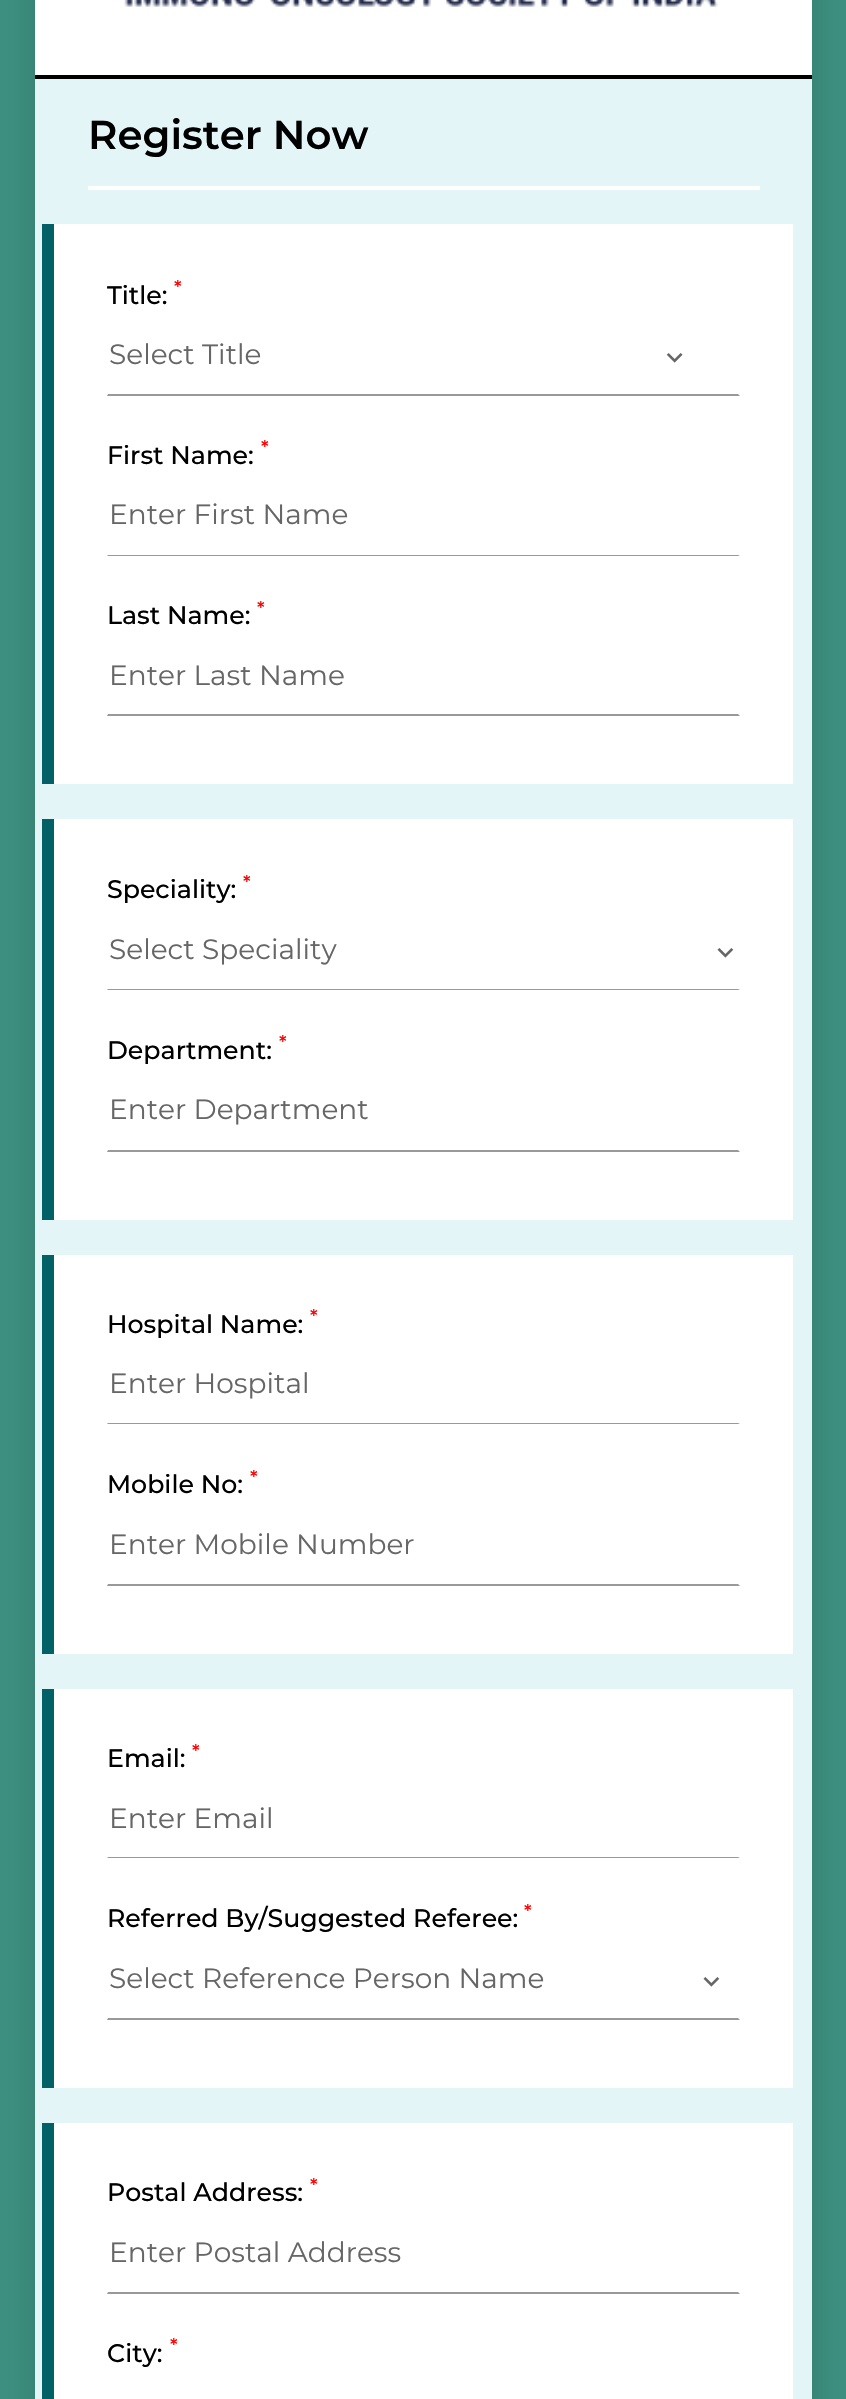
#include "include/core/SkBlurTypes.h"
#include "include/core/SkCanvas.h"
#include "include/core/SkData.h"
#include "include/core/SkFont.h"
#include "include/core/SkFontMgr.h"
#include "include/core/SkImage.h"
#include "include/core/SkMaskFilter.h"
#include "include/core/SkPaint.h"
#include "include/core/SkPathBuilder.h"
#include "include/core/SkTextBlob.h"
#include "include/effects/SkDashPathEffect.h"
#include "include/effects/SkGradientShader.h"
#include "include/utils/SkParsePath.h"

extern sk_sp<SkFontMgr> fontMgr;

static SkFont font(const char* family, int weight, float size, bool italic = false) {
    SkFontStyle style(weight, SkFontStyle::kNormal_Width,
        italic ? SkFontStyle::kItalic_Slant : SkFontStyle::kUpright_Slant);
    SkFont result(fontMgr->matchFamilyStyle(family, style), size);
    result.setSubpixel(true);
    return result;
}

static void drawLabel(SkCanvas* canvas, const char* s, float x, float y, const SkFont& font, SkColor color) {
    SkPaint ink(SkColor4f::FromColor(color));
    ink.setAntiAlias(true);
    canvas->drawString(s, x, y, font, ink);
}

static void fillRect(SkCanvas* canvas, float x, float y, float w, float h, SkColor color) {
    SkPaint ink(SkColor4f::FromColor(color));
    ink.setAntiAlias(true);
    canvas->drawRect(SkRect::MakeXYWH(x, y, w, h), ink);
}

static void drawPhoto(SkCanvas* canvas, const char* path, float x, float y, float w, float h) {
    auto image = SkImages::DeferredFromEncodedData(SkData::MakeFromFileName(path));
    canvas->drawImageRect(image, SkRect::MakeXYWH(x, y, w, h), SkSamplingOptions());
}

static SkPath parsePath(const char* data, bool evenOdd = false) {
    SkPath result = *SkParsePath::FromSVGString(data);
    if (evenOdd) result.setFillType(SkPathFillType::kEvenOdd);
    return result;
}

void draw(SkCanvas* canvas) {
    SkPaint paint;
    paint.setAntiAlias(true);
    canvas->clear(0xFF3D9080);
    paint.setColor(0x26000000);
    paint.setMaskFilter(SkMaskFilter::MakeBlur(kNormal_SkBlurStyle, 17.5f));
    canvas->drawRoundRect(SkRect::MakeXYWH(35, -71, 777, 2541), 18, 18, paint);
    paint.setMaskFilter(nullptr);
    fillRect(canvas, 35, 0, 777, 75, 0xFFFFFFFF);
    fillRect(canvas, 35, 75, 777, 4, 0xFF000000);
    drawPhoto(canvas, "assets/img1.png", 124, 0, 594, 7);
    fillRect(canvas, 35, 79, 777, 2320, 0xFFE3F5F7);
    SkFont font1 = font("Montserrat", 600, 40.25f);
    drawLabel(canvas, "Register Now", 88, 149, font1, 0xFF000000);
    fillRect(canvas, 88, 186, 672, 4, 0xFFFFFFFF);
    fillRect(canvas, 42, 224, 12, 560, 0xFF026167);
    fillRect(canvas, 54, 224, 739, 560, 0xFFFFFFFF);
    SkFont font2 = font("Montserrat", 500, 25.25f);
    drawLabel(canvas, "Title:", 107, 304, font2, 0xFF000000);
    SkFont font3 = font("Montserrat", 500, 19);
    drawLabel(canvas, "*", 174, 294, font3, 0xFFFF0000);
    paint.setColor(0xFF999999);
    canvas->drawPath(parsePath("M740 396H107L108 394H738Z"), paint);
    SkFont font4 = font("Montserrat", 400, 28);
    drawLabel(canvas, "Select Title", 109, 364, font4, 0xFF666666);
    drawPhoto(canvas, "assets/img2.png", 666, 353, 17, 10);
    drawLabel(canvas, "First Name:", 107, 464, font2, 0xFF000000);
    drawLabel(canvas, "*", 261, 454, font3, 0xFFFF0000);
    canvas->drawPath(parsePath("M740 556H107L108 555H738Z"), paint);
    drawLabel(canvas, "Enter First Name", 109, 524, font4, 0xFF666666);
    drawLabel(canvas, "*", 257, 615, font3, 0xFFFF0000);
    drawLabel(canvas, "Last Name:", 107, 624, font2, 0xFF000000);
    canvas->drawPath(parsePath("M740 716H107L108 714H738Z"), paint);
    drawLabel(canvas, "Enter Last Name", 109, 685, font4, 0xFF666666);
    paint.setColor(0xFF026167);
    canvas->drawPath(parsePath("M42 819V1220H781H54V819Z"), paint);
    fillRect(canvas, 54, 819, 739, 401, 0xFFFFFFFF);
    drawLabel(canvas, "Speciality:", 107, 898, font2, 0xFF000000);
    drawLabel(canvas, "*", 243, 889, font3, 0xFFFF0000);
    paint.setColor(0xFF999999);
    canvas->drawPath(parsePath("M740 990H107L108 989H738Z"), paint);
    drawLabel(canvas, "Select Speciality", 109, 959, font4, 0xFF666666);
    drawPhoto(canvas, "assets/img3.png", 717, 948, 17, 10);
    drawLabel(canvas, "*", 279, 1049, font3, 0xFFFF0000);
    drawLabel(canvas, "Department:", 107, 1059, font2, 0xFF000000);
    canvas->drawPath(parsePath("M740 1152H107L108 1150H738Z"), paint);
    drawLabel(canvas, "Enter Department", 109, 1119, font4, 0xFF666666);
    paint.setColor(0xFF026167);
    canvas->drawPath(parsePath("M42 1255V1654H781H54V1255Z"), paint);
    fillRect(canvas, 54, 1255, 739, 399, 0xFFFFFFFF);
    drawLabel(canvas, "Hospital Name:", 107, 1333, font2, 0xFF000000);
    drawLabel(canvas, "*", 310, 1323, font3, 0xFFFF0000);
    paint.setColor(0xFF999999);
    canvas->drawPath(parsePath("M740 1424H107L108 1423H738Z"), paint);
    drawLabel(canvas, "Enter Hospital", 109, 1393, font4, 0xFF666666);
    drawLabel(canvas, "Mobile No:", 107, 1493, font2, 0xFF000000);
    drawLabel(canvas, "*", 250, 1484, font3, 0xFFFF0000);
    canvas->drawPath(parsePath("M740 1586H107L108 1584H738Z"), paint);
    drawLabel(canvas, "Enter Mobile Number", 109, 1554, font4, 0xFF666666);
    paint.setColor(0xFF026167);
    canvas->drawPath(parsePath("M42 1689V2088H781H54V1689Z"), paint);
    fillRect(canvas, 54, 1689, 739, 399, 0xFFFFFFFF);
    drawLabel(canvas, "Email:", 107, 1767, font2, 0xFF000000);
    drawLabel(canvas, "*", 192, 1758, font3, 0xFFFF0000);
    paint.setColor(0xFF999999);
    canvas->drawPath(parsePath("M740 1858H107L108 1857H738Z"), paint);
    drawLabel(canvas, "Enter Email", 109, 1828, font4, 0xFF666666);
    drawLabel(canvas, "Referred By/Suggested Referee:", 107, 1927, font2, 0xFF000000);
    drawLabel(canvas, "*", 524, 1918, font3, 0xFFFF0000);
    canvas->drawPath(parsePath("M740 2020H107L108 2018H738Z"), paint);
    drawLabel(canvas, "Select Reference Person Name", 109, 1988, font4, 0xFF666666);
    drawPhoto(canvas, "assets/img3.png", 703, 1977, 17, 10);
    paint.setColor(0xFF026167);
    canvas->drawPath(parsePath("M42 2123V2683H781H54V2123Z"), paint);
    fillRect(canvas, 54, 2123, 739, 276, 0xFFFFFFFF);
    drawLabel(canvas, "Postal Address:", 107, 2201, font2, 0xFF000000);
    drawLabel(canvas, "*", 310, 2192, font3, 0xFFFF0000);
    paint.setColor(0xFF999999);
    canvas->drawPath(parsePath("M740 2294H107L108 2292H738Z"), paint);
    drawLabel(canvas, "Enter Postal Address", 109, 2262, font4, 0xFF666666);
    drawLabel(canvas, "City:", 107, 2362, font2, 0xFF000000);
    drawLabel(canvas, "*", 170, 2352, font3, 0xFFFF0000);
}
